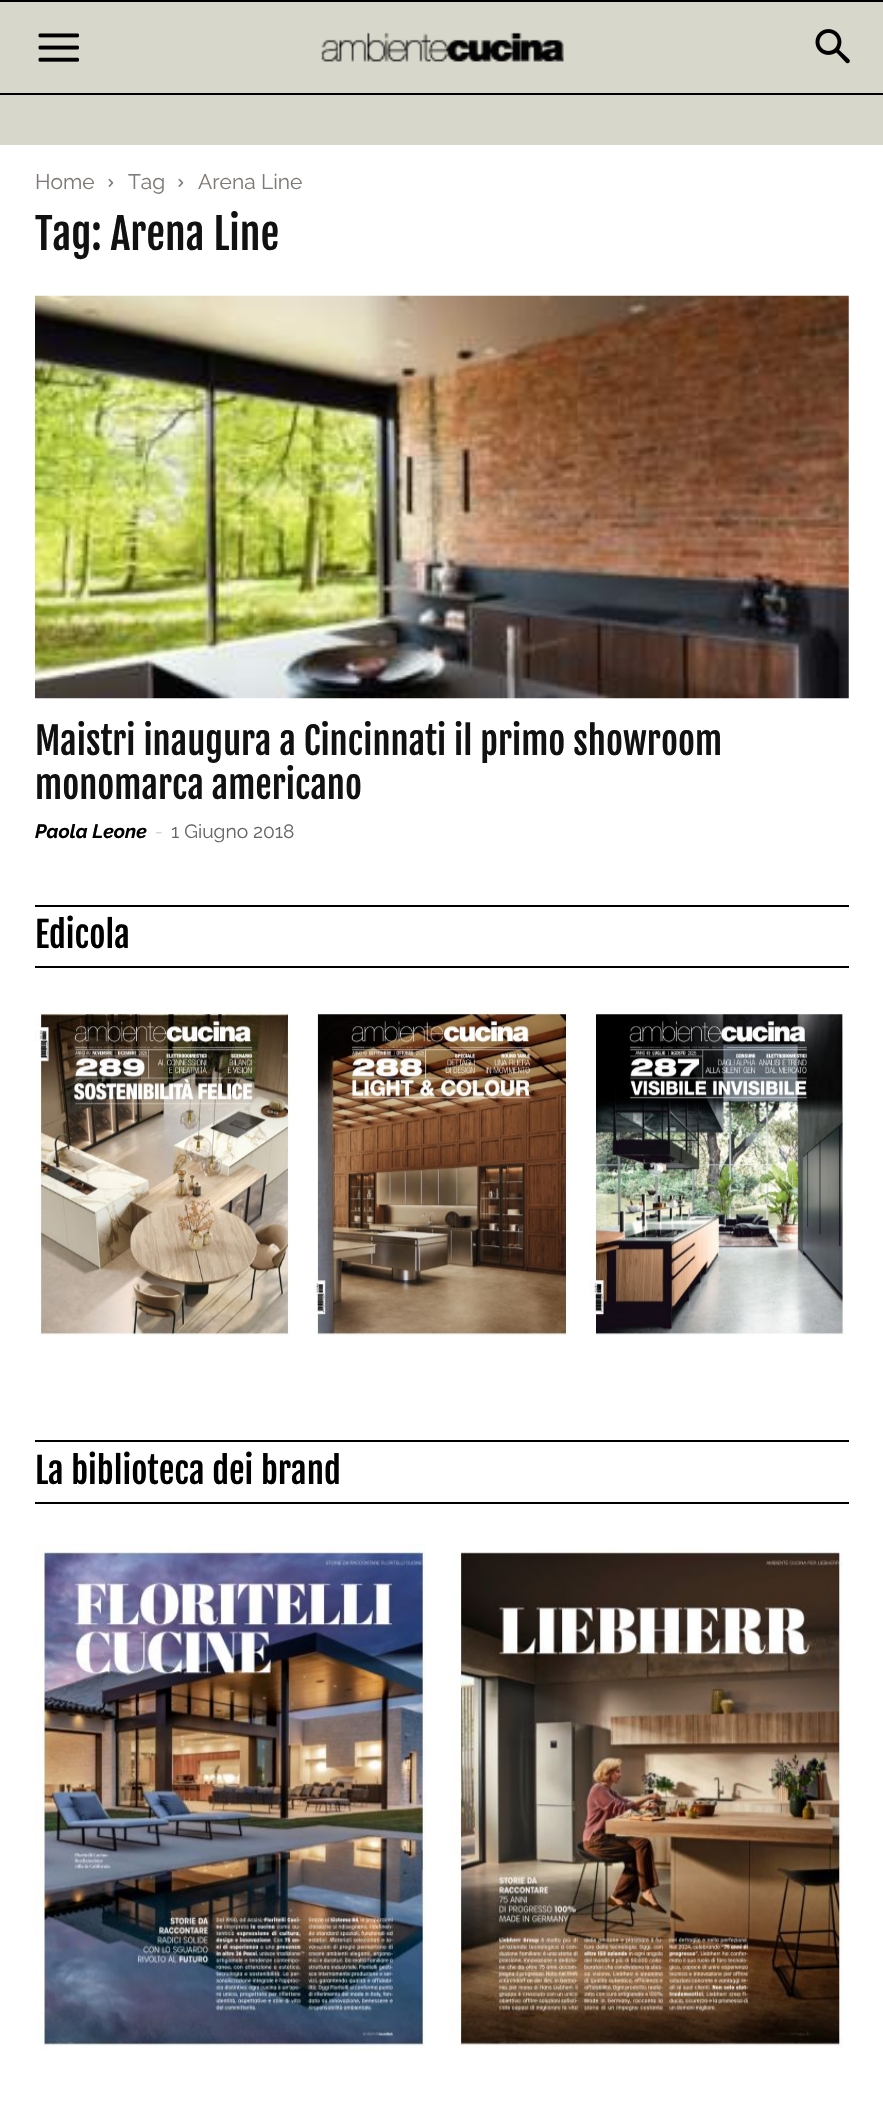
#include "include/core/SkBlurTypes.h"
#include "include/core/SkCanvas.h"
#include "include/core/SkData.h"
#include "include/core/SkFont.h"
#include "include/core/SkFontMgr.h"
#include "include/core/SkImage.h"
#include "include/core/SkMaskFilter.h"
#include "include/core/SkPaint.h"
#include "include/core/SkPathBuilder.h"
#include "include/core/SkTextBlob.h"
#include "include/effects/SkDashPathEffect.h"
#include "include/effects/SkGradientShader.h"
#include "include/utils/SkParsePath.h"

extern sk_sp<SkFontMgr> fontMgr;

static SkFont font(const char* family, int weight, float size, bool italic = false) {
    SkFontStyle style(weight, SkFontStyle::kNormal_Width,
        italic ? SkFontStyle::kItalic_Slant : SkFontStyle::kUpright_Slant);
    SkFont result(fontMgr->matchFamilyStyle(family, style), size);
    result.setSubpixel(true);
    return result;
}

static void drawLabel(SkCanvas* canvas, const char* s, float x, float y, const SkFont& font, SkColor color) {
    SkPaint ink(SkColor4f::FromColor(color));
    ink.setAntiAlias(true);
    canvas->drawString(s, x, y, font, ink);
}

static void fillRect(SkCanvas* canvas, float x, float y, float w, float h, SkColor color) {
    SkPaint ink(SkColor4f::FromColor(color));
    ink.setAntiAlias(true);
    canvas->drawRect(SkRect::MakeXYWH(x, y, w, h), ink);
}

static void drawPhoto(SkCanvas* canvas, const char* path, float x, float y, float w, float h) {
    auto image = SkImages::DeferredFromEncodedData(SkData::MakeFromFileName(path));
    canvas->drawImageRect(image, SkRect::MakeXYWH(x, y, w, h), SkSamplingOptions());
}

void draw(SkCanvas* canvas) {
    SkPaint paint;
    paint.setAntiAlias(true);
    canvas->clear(0xFFD8D7CB);
    fillRect(canvas, 0, 0, 883, 2, 0xFF000000);
    fillRect(canvas, 0, 93, 883, 2, 0xFF000000);
    drawPhoto(canvas, "assets/img1.png", 38, 33, 41, 29);
    drawPhoto(canvas, "assets/img2.png", 321, 32, 243, 30);
    drawPhoto(canvas, "assets/img3.png", 815, 29, 35, 35);
    fillRect(canvas, 0, 145, 883, 1963, 0xFFFFFFFF);
    SkFont font1 = font("Raleway", 400, 21);
    drawLabel(canvas, "Home", 35, 189, font1, 0xFF7E7974);
    drawPhoto(canvas, "assets/img4.png", 108, 178, 6, 9);
    drawLabel(canvas, "Tag", 128, 189, font1, 0xFF7E7974);
    drawPhoto(canvas, "assets/img4.png", 178, 178, 6, 9);
    drawLabel(canvas, "Arena Line", 198, 189, font1, 0xFF7E7974);
    SkFont font2 = font("Fjalla One", 400, 42);
    drawLabel(canvas, "Tag: Arena Line", 35, 250, font2, 0xFF111111);
    drawPhoto(canvas, "assets/img5.png", 35, 295, 814, 404);
    SkFont font3 = font("Fjalla One", 400, 36.75f);
    drawLabel(canvas, "Maistri inaugura a Cincinnati il primo showroom", 35, 755, font3, 0xFF111111);
    drawLabel(canvas, "monomarca americano", 35, 799, font3, 0xFF111111);
    SkFont font4 = font("Raleway", 700, 19.25f, true);
    drawLabel(canvas, "Paola Leone", 35, 838, font4, 0xFF000000);
    SkFont font5 = font("Raleway", 400, 19.25f, true);
    drawLabel(canvas, "-", 155, 838, font5, 0xFFCCCCCC);
    SkFont font6 = font("Raleway", 400, 19.25f);
    drawLabel(canvas, "1 Giugno 2018", 171, 838, font6, 0xFF666666);
    fillRect(canvas, 35, 905, 814, 2, 0xFF000000);
    SkFont font7 = font("Fjalla One", 400, 35);
    drawLabel(canvas, "Edicola", 35, 948, font7, 0xFF000000);
    fillRect(canvas, 35, 966, 814, 2, 0xFF000000);
    drawPhoto(canvas, "assets/img6.png", 35, 1008, 255, 328);
    drawPhoto(canvas, "assets/img7.png", 313, 1008, 256, 328);
    drawPhoto(canvas, "assets/img8.png", 590, 1013, 255, 322);
    fillRect(canvas, 35, 1440, 814, 2, 0xFF000000);
    drawLabel(canvas, "La biblioteca dei brand", 35, 1484, font7, 0xFF000000);
    fillRect(canvas, 35, 1502, 814, 2, 0xFF000000);
    drawPhoto(canvas, "assets/img9.png", 35, 1543, 391, 508);
    drawPhoto(canvas, "assets/img10.png", 451, 1549, 392, 500);
}
